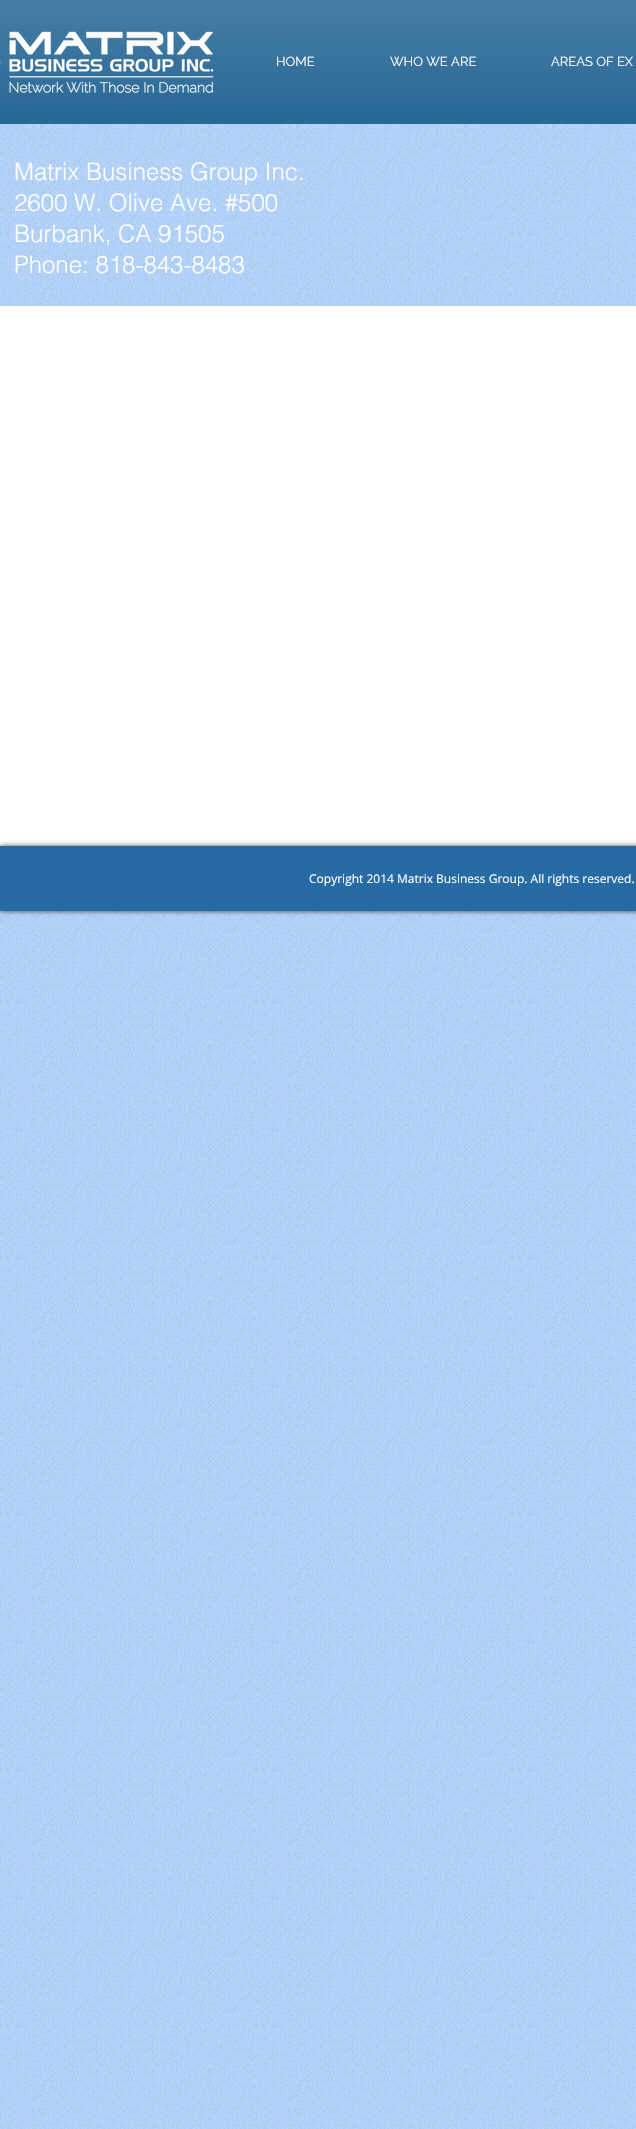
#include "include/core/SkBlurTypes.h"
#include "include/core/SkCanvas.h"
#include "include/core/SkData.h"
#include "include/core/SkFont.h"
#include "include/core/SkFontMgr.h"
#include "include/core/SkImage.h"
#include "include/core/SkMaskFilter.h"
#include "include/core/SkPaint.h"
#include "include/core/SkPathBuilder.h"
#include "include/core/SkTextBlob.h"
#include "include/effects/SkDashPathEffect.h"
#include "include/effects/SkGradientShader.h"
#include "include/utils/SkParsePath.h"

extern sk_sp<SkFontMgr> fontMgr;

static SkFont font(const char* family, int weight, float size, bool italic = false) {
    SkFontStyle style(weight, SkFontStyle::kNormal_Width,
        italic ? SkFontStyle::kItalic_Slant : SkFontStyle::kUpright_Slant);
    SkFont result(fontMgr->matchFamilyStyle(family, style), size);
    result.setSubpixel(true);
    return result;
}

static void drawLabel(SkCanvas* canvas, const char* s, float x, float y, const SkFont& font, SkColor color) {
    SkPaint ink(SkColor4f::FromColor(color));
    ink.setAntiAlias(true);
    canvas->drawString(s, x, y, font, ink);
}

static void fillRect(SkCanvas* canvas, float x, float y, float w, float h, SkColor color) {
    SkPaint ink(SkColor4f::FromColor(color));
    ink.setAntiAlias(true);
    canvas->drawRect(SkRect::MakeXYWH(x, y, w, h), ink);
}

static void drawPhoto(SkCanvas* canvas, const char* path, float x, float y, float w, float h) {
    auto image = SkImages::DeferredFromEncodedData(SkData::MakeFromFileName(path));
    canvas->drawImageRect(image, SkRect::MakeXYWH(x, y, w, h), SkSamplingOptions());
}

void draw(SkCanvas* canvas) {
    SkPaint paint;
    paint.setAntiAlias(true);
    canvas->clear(0xFFB7D6FD);
    fillRect(canvas, 0, 0, 636, 124, 0xFF055085);
    drawPhoto(canvas, "assets/img1.png", 0, 0, 636, 124);
    drawPhoto(canvas, "assets/img2.png", 0, 31, 214, 62);
    SkFont font1 = font("Raleway", 400, 13);
    drawLabel(canvas, "HOME", 276, 66, font1, 0xFFFFFFFF);
    drawLabel(canvas, "WHO WE ARE", 390, 66, font1, 0xFFFFFFFF);
    drawLabel(canvas, "AREAS OF EX", 551, 66, font1, 0xFFFFFFFF);
    drawPhoto(canvas, "assets/img3.png", 0, 124, 636, 2005);
    SkFont font2 = font("helvetica", 300, 24);
    drawLabel(canvas, "Matrix Business Group Inc.", 14, 180, font2, 0xFFFFFFFF);
    drawLabel(canvas, "2600 W. Olive Ave. #500", 14, 211, font2, 0xFFFFFFFF);
    drawLabel(canvas, "Burbank, CA 91505", 14, 242, font2, 0xFFFFFFFF);
    drawLabel(canvas, "Phone: 818-843-8483", 14, 273, font2, 0xFFFFFFFF);
    fillRect(canvas, 0, 306, 636, 540, 0xFFFFFFFF);
    paint.setColor(0xB3000000);
    paint.setMaskFilter(SkMaskFilter::MakeBlur(kNormal_SkBlurStyle, 2.5f));
    canvas->drawRect(SkRect::MakeXYWH(0, 846, 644, 65), paint);
    paint.setMaskFilter(nullptr);
    fillRect(canvas, 0, 846, 636, 65, 0xFF276BA5);
    SkFont font3 = font("Open Sans", 400, 12);
    drawLabel(canvas, "Copyright 2014 Matrix Business Group. All rights reserved.", 309, 883, font3, 0xFFFFFFFF);
}
